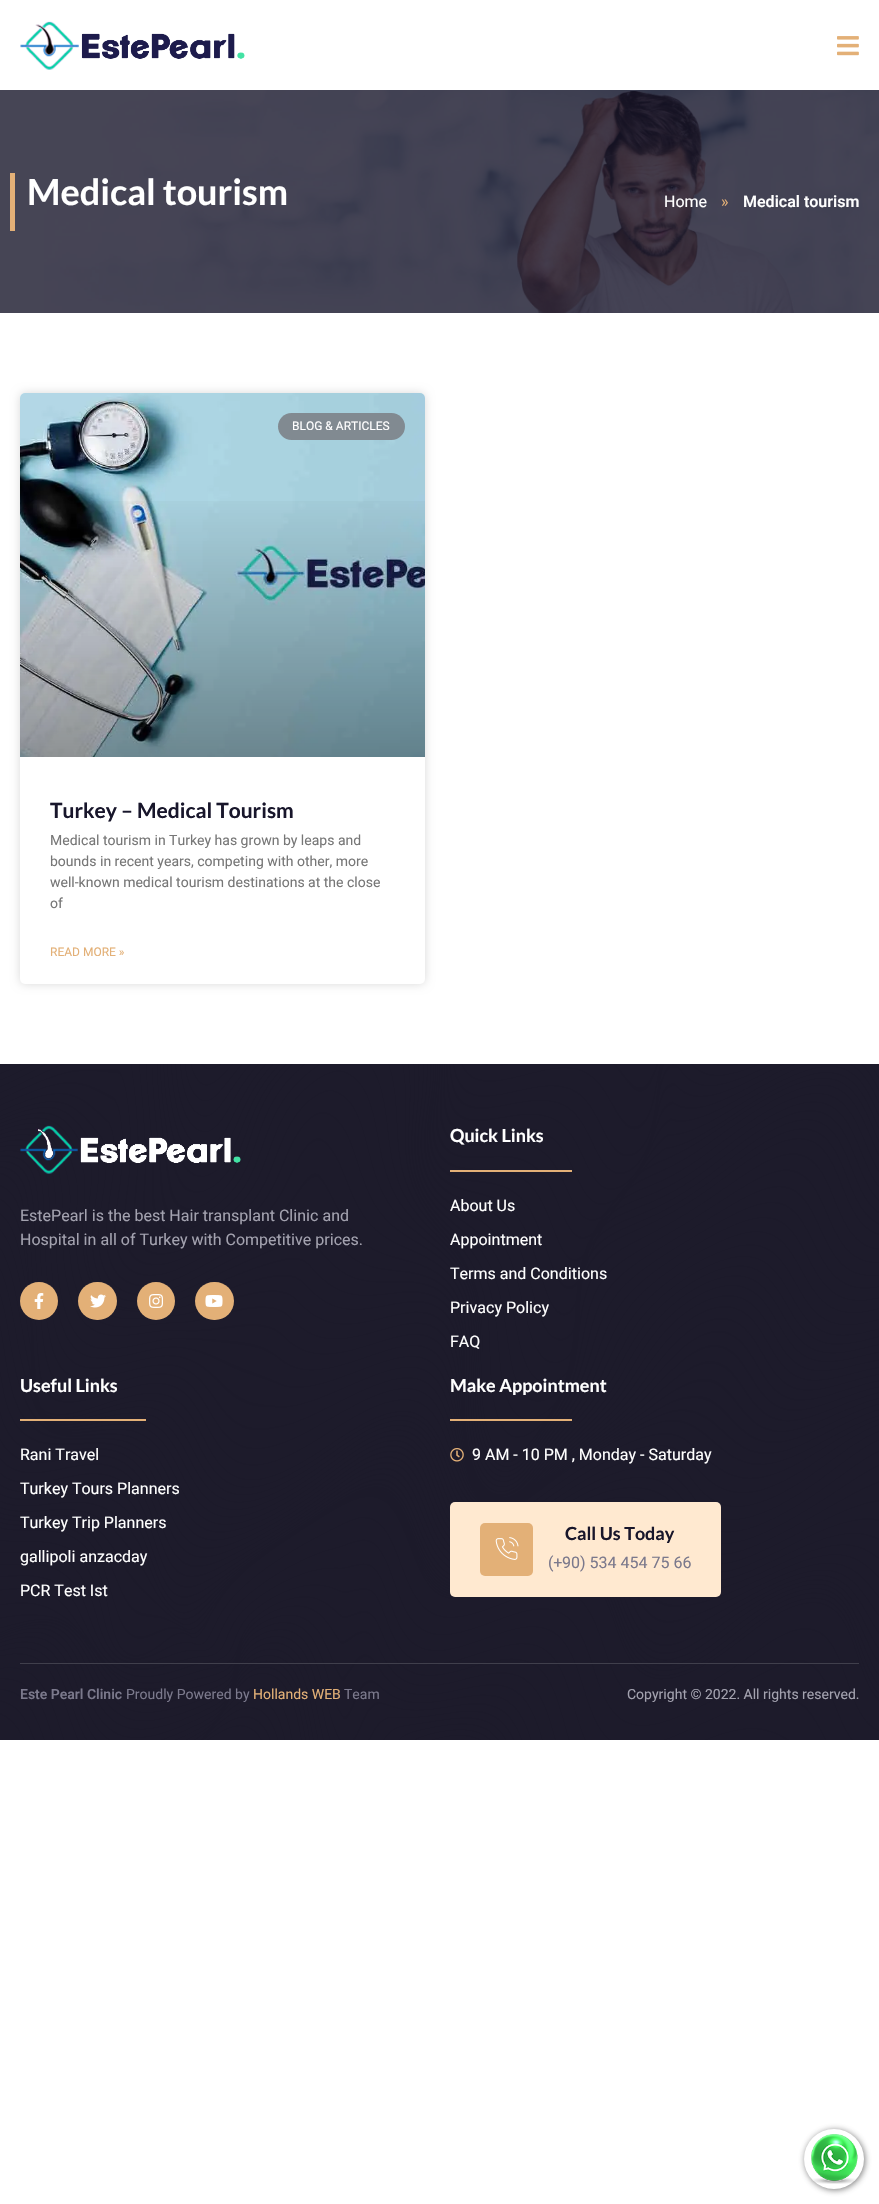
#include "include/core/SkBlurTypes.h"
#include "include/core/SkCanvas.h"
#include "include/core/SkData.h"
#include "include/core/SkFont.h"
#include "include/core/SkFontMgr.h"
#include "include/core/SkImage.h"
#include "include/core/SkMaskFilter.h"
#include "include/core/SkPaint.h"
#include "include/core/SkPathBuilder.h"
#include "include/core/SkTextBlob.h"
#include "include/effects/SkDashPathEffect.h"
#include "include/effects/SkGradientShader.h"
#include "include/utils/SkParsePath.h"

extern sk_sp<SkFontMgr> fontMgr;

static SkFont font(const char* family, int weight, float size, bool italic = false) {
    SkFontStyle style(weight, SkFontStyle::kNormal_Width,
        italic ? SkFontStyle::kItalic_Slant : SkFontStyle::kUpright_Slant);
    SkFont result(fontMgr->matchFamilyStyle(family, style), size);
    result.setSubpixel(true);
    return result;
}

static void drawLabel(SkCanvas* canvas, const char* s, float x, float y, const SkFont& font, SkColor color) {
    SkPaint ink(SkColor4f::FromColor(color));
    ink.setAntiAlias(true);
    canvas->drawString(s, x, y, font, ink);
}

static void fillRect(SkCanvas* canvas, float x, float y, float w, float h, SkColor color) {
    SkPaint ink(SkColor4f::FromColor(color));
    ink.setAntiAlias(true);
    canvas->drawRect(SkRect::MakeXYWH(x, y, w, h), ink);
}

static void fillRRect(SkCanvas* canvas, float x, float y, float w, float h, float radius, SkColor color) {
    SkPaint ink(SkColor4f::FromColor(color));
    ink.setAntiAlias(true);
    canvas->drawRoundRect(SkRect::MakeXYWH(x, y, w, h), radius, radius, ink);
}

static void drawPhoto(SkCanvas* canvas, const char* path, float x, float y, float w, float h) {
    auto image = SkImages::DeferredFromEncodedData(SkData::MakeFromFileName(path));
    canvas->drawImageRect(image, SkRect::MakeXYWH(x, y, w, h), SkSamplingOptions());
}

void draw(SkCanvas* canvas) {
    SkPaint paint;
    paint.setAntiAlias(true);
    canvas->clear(0xFFFFFFFF);
    fillRect(canvas, 0, 90, 44, 223, 0xFF464555);
    drawPhoto(canvas, "assets/img1.png", 20, 21, 225, 49);
    drawPhoto(canvas, "assets/img2.png", 837, 36, 22, 20);
    drawPhoto(canvas, "assets/img3.png", 44, 90, 835, 223);
    fillRect(canvas, 10, 173, 5, 58, 0xFFE3B077);
    SkFont font1 = font("Lato", 700, 36);
    drawLabel(canvas, "Medical tourism", 27, 205, font1, 0xFFFFFFFF);
    SkFont font2 = font("Heebo", 400, 16);
    drawLabel(canvas, "Home", 664, 207, font2, 0xFFFFFFFF);
    drawLabel(canvas, "»", 721, 207, font2, 0xFFE3B077);
    SkFont font3 = font("Heebo", 600, 16);
    drawLabel(canvas, "Medical tourism", 743, 207, font3, 0xFFFFFFFF);
    paint.setColor(0x26000000);
    paint.setMaskFilter(SkMaskFilter::MakeBlur(kNormal_SkBlurStyle, 5));
    canvas->drawRoundRect(SkRect::MakeXYWH(20, 393, 405, 591), 5, 5, paint);
    paint.setMaskFilter(nullptr);
    fillRRect(canvas, 20, 393, 405, 591, 5, 0xFFFFFFFF);
    drawPhoto(canvas, "assets/img4.png", 20, 393, 405, 364);
    {
        const SkColor colors[] = {0x59000000, 0x00000000};
        const float stops[] = {0, 0.75f};
        const SkPoint ends[] = {{223, 757}, {223, 393}};
        paint.setShader(SkGradientShader::MakeLinear(ends, colors, stops, 2, SkTileMode::kClamp));
        paint.setAlpha(255);
    }
    canvas->drawRect(SkRect::MakeXYWH(20, 501, 405, 256), paint);
    fillRRect(canvas, 278, 413, 127, 27, 13.5f, 0xFF818A91);
    SkFont font4 = font("Heebo", 400, 12);
    drawLabel(canvas, "BLOG & ARTICLES", 292, 430, font4, 0xFFFFFFFF);
    SkFont font5 = font("Lato", 700, 21);
    drawLabel(canvas, "Turkey – Medical Tourism", 50, 818, font5, 0xFF18162B);
    SkFont font6 = font("Heebo", 400, 14);
    drawLabel(canvas, "Medical tourism in Turkey has grown by leaps and", 50, 845, font6, 0xFF777777);
    drawLabel(canvas, "bounds in recent years, competing with other, more", 50, 866, font6, 0xFF777777);
    drawLabel(canvas, "well-known medical tourism destinations at the close", 50, 887, font6, 0xFF777777);
    drawLabel(canvas, "of", 50, 908, font6, 0xFF777777);
    drawLabel(canvas, "READ MORE »", 50, 956, font4, 0xFFE3B077);
    fillRect(canvas, 0, 1064, 879, 676, 0xFF131122);
    drawPhoto(canvas, "assets/img5.png", 0, 1064, 879, 676);
    drawPhoto(canvas, "assets/img6.png", 20, 1125, 221, 49);
    drawLabel(canvas, "EstePearl is the best Hair transplant Clinic and", 20, 1221, font2, 0xFFA3A2AF);
    drawLabel(canvas, "Hospital in all of Turkey with Competitive prices.", 20, 1245, font2, 0xFFA3A2AF);
    paint.setShader(nullptr);
    paint.setColor(0xFFE3B077);
    canvas->drawCircle(39, 1301, 19, paint);
    drawPhoto(canvas, "assets/img7.png", 34, 1293, 10, 16);
    fillRRect(canvas, 78, 1282, 39, 38, 19, 0xFFE3B077);
    drawPhoto(canvas, "assets/img8.png", 90, 1294, 16, 14);
    canvas->drawCircle(156, 1301, 19, paint);
    drawPhoto(canvas, "assets/img9.png", 149, 1294, 14, 14);
    fillRRect(canvas, 195, 1282, 39, 38, 19, 0xFFE3B077);
    drawPhoto(canvas, "assets/img10.png", 205, 1295, 18, 12);
    SkFont font7 = font("Lato", 700, 18);
    drawLabel(canvas, "Quick Links", 450, 1142, font7, 0xFFFFFFFF);
    fillRect(canvas, 450, 1170, 122, 2, 0xFFE3B077);
    drawLabel(canvas, "About Us", 450, 1211, font2, 0xFFFFFFFF);
    drawLabel(canvas, "Appointment", 450, 1245, font2, 0xFFFFFFFF);
    drawLabel(canvas, "Terms and Conditions", 450, 1279, font2, 0xFFFFFFFF);
    drawLabel(canvas, "Privacy Policy", 450, 1313, font2, 0xFFFFFFFF);
    drawLabel(canvas, "FAQ", 450, 1347, font2, 0xFFFFFFFF);
    drawLabel(canvas, "Useful Links", 20, 1392, font7, 0xFFFFFFFF);
    fillRect(canvas, 20, 1419, 126, 2, 0xFFE3B077);
    drawLabel(canvas, "Rani Travel", 20, 1460, font2, 0xFFFFFFFF);
    drawLabel(canvas, "Turkey Tours Planners", 20, 1494, font2, 0xFFFFFFFF);
    drawLabel(canvas, "Turkey Trip Planners", 20, 1528, font2, 0xFFFFFFFF);
    drawLabel(canvas, "gallipoli anzacday", 20, 1562, font2, 0xFFFFFFFF);
    drawLabel(canvas, "PCR Test Ist", 20, 1596, font2, 0xFFFFFFFF);
    drawLabel(canvas, "Make Appointment", 450, 1392, font7, 0xFFFFFFFF);
    fillRect(canvas, 450, 1419, 122, 2, 0xFFE3B077);
    drawPhoto(canvas, "assets/img11.png", 450, 1448, 14, 14);
    drawLabel(canvas, "9 AM - 10 PM , Monday - Saturday", 472, 1460, font2, 0xFFFFFFFF);
    fillRRect(canvas, 450, 1502, 271, 95, 5, 0xFFFFE9D0);
    fillRRect(canvas, 480, 1523, 53, 53, 5, 0xFFE3B077);
    drawPhoto(canvas, "assets/img12.png", 495, 1537, 24, 23);
    drawLabel(canvas, "Call Us Today", 565, 1540, font7, 0xFF18162B);
    drawLabel(canvas, "(+90) 534 454 75 66", 548, 1568, font2, 0xFF7B798C);
    paint.setColor(0xB5444444);
    paint.setMaskFilter(SkMaskFilter::MakeBlur(kNormal_SkBlurStyle, 3));
    canvas->drawRoundRect(SkRect::MakeXYWH(805, 2130, 60, 60), 30, 30, paint);
    paint.setMaskFilter(nullptr);
    paint.setColor(0xFFFFFFFF);
    canvas->drawCircle(834, 2159, 30, paint);
    drawPhoto(canvas, "assets/img13.png", 811, 2134, 47, 50);
    fillRect(canvas, 20, 1663, 839, 1, 0xFF403F4C);
    SkFont font8 = font("Heebo", 600, 14);
    drawLabel(canvas, "Este Pearl Clinic", 20, 1699, font8, 0xFF7B798C);
    drawLabel(canvas, "Proudly Powered by", 126, 1699, font6, 0xFF7B798C);
    drawLabel(canvas, "Hollands WEB", 253, 1699, font6, 0xFFE3B077);
    drawLabel(canvas, "Team", 344, 1699, font6, 0xFF7B798C);
    drawLabel(canvas, "Copyright © 2022. All rights reserved.", 627, 1699, font6, 0xFFA3A2AF);
}
